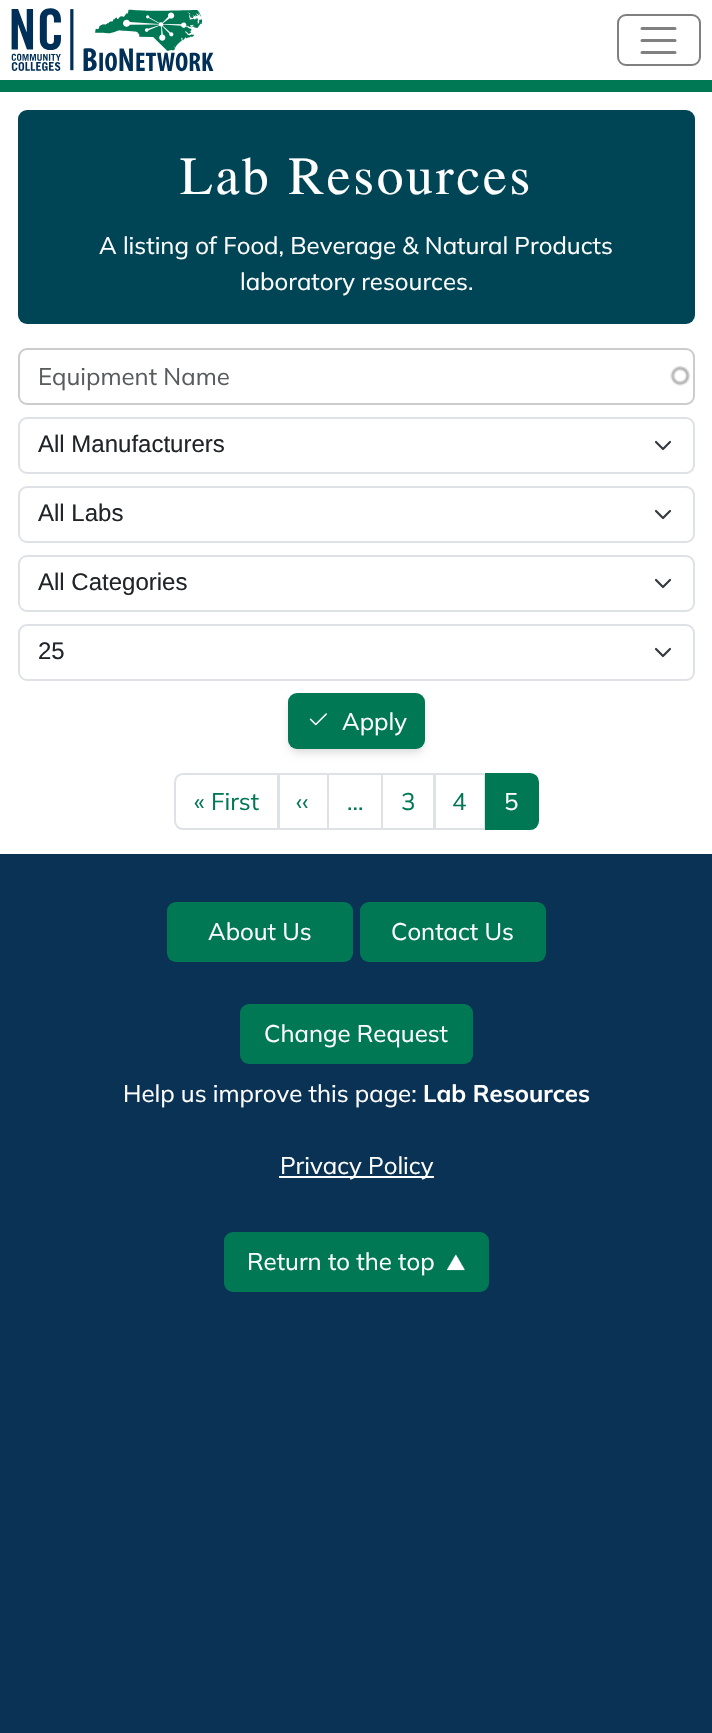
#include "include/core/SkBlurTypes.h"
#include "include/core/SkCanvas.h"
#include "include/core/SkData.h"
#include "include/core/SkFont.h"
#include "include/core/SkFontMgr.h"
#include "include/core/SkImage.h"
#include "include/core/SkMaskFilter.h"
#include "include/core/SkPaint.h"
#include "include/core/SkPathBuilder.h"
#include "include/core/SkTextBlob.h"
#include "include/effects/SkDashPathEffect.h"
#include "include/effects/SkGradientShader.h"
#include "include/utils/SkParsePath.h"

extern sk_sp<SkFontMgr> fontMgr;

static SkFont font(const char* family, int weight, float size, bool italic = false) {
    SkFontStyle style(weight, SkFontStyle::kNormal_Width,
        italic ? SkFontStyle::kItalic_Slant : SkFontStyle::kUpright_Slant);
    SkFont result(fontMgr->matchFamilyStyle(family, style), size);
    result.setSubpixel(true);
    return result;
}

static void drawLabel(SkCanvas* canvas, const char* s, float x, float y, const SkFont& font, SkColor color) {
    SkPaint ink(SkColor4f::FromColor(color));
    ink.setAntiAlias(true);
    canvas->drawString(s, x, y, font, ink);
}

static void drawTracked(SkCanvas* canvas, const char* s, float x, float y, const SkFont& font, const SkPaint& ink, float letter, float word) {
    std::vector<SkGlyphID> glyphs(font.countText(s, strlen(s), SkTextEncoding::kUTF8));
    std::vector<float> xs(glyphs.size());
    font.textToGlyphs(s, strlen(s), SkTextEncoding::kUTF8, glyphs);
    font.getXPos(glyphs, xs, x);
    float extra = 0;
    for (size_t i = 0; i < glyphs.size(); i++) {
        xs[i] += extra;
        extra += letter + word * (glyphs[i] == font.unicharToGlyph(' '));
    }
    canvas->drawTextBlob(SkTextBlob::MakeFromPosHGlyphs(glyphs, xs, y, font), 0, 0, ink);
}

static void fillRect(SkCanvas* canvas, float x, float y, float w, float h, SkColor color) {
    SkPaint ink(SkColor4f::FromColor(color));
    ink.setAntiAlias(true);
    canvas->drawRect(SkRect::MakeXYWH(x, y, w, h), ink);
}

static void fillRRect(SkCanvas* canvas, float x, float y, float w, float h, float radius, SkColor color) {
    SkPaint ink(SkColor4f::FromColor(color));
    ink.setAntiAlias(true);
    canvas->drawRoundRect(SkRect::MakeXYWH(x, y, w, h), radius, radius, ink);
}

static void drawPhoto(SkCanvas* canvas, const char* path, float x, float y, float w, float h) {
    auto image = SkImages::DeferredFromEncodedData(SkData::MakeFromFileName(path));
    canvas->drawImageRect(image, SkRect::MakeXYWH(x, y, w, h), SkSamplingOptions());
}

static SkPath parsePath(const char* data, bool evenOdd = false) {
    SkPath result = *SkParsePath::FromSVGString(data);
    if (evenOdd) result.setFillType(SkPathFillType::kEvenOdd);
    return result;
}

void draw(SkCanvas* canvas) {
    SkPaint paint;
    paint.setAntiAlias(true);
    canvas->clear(0xFF0A3254);
    fillRect(canvas, 0, 0, 712, 854, 0xFFFFFFFF);
    fillRect(canvas, 0, 80, 712, 12, 0xFF007854);
    drawPhoto(canvas, "assets/img1.png", 11, 8, 203, 64);
    paint.setStroke(true);
    paint.setStrokeWidth(2);
    paint.setColor(0xFF7F7F7F);
    canvas->drawRoundRect(SkRect::MakeXYWH(618, 15, 82, 50), 8, 8, paint);
    paint.setStrokeWidth(3);
    paint.setStrokeCap(SkPaint::kRound_Cap);
    paint.setColor(0xFF808080);
    canvas->drawPath(parsePath("M642 28.5H675M642 40.5H675M642 52.5H675"), paint);
    fillRRect(canvas, 18, 110, 677, 214, 9, 0xFF004555);
    SkFont font1 = font("Jomolhari", 400, 48);
    paint.setStroke(false);
    paint.setColor(0xFFFFFFFF);
    drawTracked(canvas, "Lab Resources", 180, 194, font1, paint, 2.75f, 0);
    SkFont font2 = font("Mulish", 400, 24);
    drawLabel(canvas, "A listing of Food, Beverage & Natural Products", 99, 254, font2, 0xFFFFFFFF);
    drawLabel(canvas, "laboratory resources.", 240, 290, font2, 0xFFFFFFFF);
    drawPhoto(canvas, "assets/img2.png", 670, 366, 21, 20);
    paint.setStroke(true);
    paint.setStrokeWidth(2);
    paint.setStrokeCap(SkPaint::kButt_Cap);
    paint.setColor(0xFFCCCCCC);
    canvas->drawRoundRect(SkRect::MakeXYWH(19, 349, 675, 55), 8, 8, paint);
    drawLabel(canvas, "Equipment Name", 38, 385, font2, 0xFF595C5F);
    paint.setStrokeWidth(2.2f);
    paint.setStrokeCap(SkPaint::kRound_Cap);
    paint.setStrokeJoin(SkPaint::kRound_Join);
    paint.setColor(0xFF343A40);
    canvas->drawPath(parsePath("M656 442L663 449L670 442"), paint);
    paint.setStrokeWidth(2);
    paint.setStrokeCap(SkPaint::kButt_Cap);
    paint.setStrokeJoin(SkPaint::kMiter_Join);
    paint.setColor(0xFFDEE2E6);
    canvas->drawRoundRect(SkRect::MakeXYWH(19, 418, 675, 55), 8, 8, paint);
    SkFont font3 = font("Liberation Sans", 400, 24);
    drawLabel(canvas, "All Manufacturers", 38, 452, font3, 0xFF212529);
    paint.setStrokeWidth(2.2f);
    paint.setStrokeCap(SkPaint::kRound_Cap);
    paint.setStrokeJoin(SkPaint::kRound_Join);
    paint.setColor(0xFF343A40);
    canvas->drawPath(parsePath("M656 511L663 518L670 511"), paint);
    paint.setStrokeWidth(2);
    paint.setStrokeCap(SkPaint::kButt_Cap);
    paint.setStrokeJoin(SkPaint::kMiter_Join);
    paint.setColor(0xFFDEE2E6);
    canvas->drawRoundRect(SkRect::MakeXYWH(19, 487, 675, 55), 8, 8, paint);
    drawLabel(canvas, "All Labs", 38, 521, font3, 0xFF212529);
    paint.setStrokeWidth(2.2f);
    paint.setStrokeCap(SkPaint::kRound_Cap);
    paint.setStrokeJoin(SkPaint::kRound_Join);
    paint.setColor(0xFF343A40);
    canvas->drawPath(parsePath("M656 580L663 587L670 580"), paint);
    paint.setStrokeWidth(2);
    paint.setStrokeCap(SkPaint::kButt_Cap);
    paint.setStrokeJoin(SkPaint::kMiter_Join);
    paint.setColor(0xFFDEE2E6);
    canvas->drawRoundRect(SkRect::MakeXYWH(19, 556, 675, 55), 8, 8, paint);
    drawLabel(canvas, "All Categories", 38, 590, font3, 0xFF212529);
    paint.setStrokeWidth(2.2f);
    paint.setStrokeCap(SkPaint::kRound_Cap);
    paint.setStrokeJoin(SkPaint::kRound_Join);
    paint.setColor(0xFF343A40);
    canvas->drawPath(parsePath("M656 649L663 656L670 649"), paint);
    paint.setStrokeWidth(2);
    paint.setStrokeCap(SkPaint::kButt_Cap);
    paint.setStrokeJoin(SkPaint::kMiter_Join);
    paint.setColor(0xFFDEE2E6);
    canvas->drawRoundRect(SkRect::MakeXYWH(19, 625, 675, 55), 8, 8, paint);
    drawLabel(canvas, "25", 38, 659, font3, 0xFF212529);
    paint.setStroke(false);
    paint.setColor(0x0F000000);
    paint.setMaskFilter(SkMaskFilter::MakeBlur(kNormal_SkBlurStyle, 3));
    canvas->drawRoundRect(SkRect::MakeXYWH(290, 698, 133, 52), 8, 8, paint);
    paint.setMaskFilter(nullptr);
    paint.setColor(0x1A000000);
    paint.setMaskFilter(SkMaskFilter::MakeBlur(kNormal_SkBlurStyle, 4.5f));
    canvas->drawRoundRect(SkRect::MakeXYWH(290, 701, 133, 52), 8, 8, paint);
    paint.setMaskFilter(nullptr);
    fillRRect(canvas, 288, 693, 137, 56, 9, 0xFF007854);
    drawPhoto(canvas, "assets/img3.png", 309, 713, 18, 13);
    drawLabel(canvas, "Apply", 342, 730, font2, 0xFFFFFFFF);
    paint.setStroke(true);
    paint.setColor(0xFFDEE2E6);
    canvas->drawPath(parsePath("M183 774H278V829H183C178.5 829 175 825.5 175 821V782C175 777.5 178.5 774 183 774Z"), paint);
    drawLabel(canvas, "« First", 194, 810, font2, 0xFF007854);
    canvas->drawRect(SkRect::MakeXYWH(279, 774, 49, 55), paint);
    drawLabel(canvas, "‹‹", 296, 810, font2, 0xFF007854);
    canvas->drawRect(SkRect::MakeXYWH(328, 774, 54, 55), paint);
    canvas->drawRect(SkRect::MakeXYWH(382, 774, 52, 55), paint);
    drawLabel(canvas, "3", 401, 810, font2, 0xFF007854);
    canvas->drawRect(SkRect::MakeXYWH(435, 774, 50, 55), paint);
    drawLabel(canvas, "4", 452, 810, font2, 0xFF007854);
    paint.setStroke(false);
    paint.setColor(0xFF007854);
    canvas->drawPath(parsePath("M486 774H530C534.5 774 538 777.5 538 782V821C538 825.5 534.5 829 530 829H486Z"), paint);
    paint.setStroke(true);
    canvas->drawPath(parsePath("M486 774H530C534.5 774 538 777.5 538 782V821C538 825.5 534.5 829 530 829H486Z"), paint);
    drawLabel(canvas, "5", 504, 810, font2, 0xFFFFFFFF);
    drawLabel(canvas, "…", 347, 810, font2, 0xFF007854);
    fillRRect(canvas, 167, 902, 186, 60, 9, 0xFF007854);
    drawLabel(canvas, "About Us", 208, 940, font2, 0xFFFFFFFF);
    fillRRect(canvas, 360, 902, 186, 60, 9, 0xFF007854);
    drawLabel(canvas, "Contact Us", 391, 940, font2, 0xFFFFFFFF);
    fillRRect(canvas, 240, 1004, 233, 60, 9, 0xFF007854);
    drawLabel(canvas, "Change Request", 264, 1042, font2, 0xFFFFFFFF);
    drawLabel(canvas, "Help us improve this page:", 123, 1102, font2, 0xFFFFFFFF);
    SkFont font4 = font("Mulish", 700, 24);
    drawLabel(canvas, "Lab Resources", 423, 1102, font4, 0xFFFFFFFF);
    fillRect(canvas, 279, 1176, 155, 2, 0xFFFFFFFF);
    drawLabel(canvas, "Privacy Policy", 280, 1174, font2, 0xFFFFFFFF);
    fillRRect(canvas, 224, 1232, 265, 60, 9, 0xFF007854);
    drawLabel(canvas, "Return to the top", 247, 1270, font2, 0xFFFFFFFF);
    drawPhoto(canvas, "assets/img4.png", 447, 1254, 18, 17);
}
